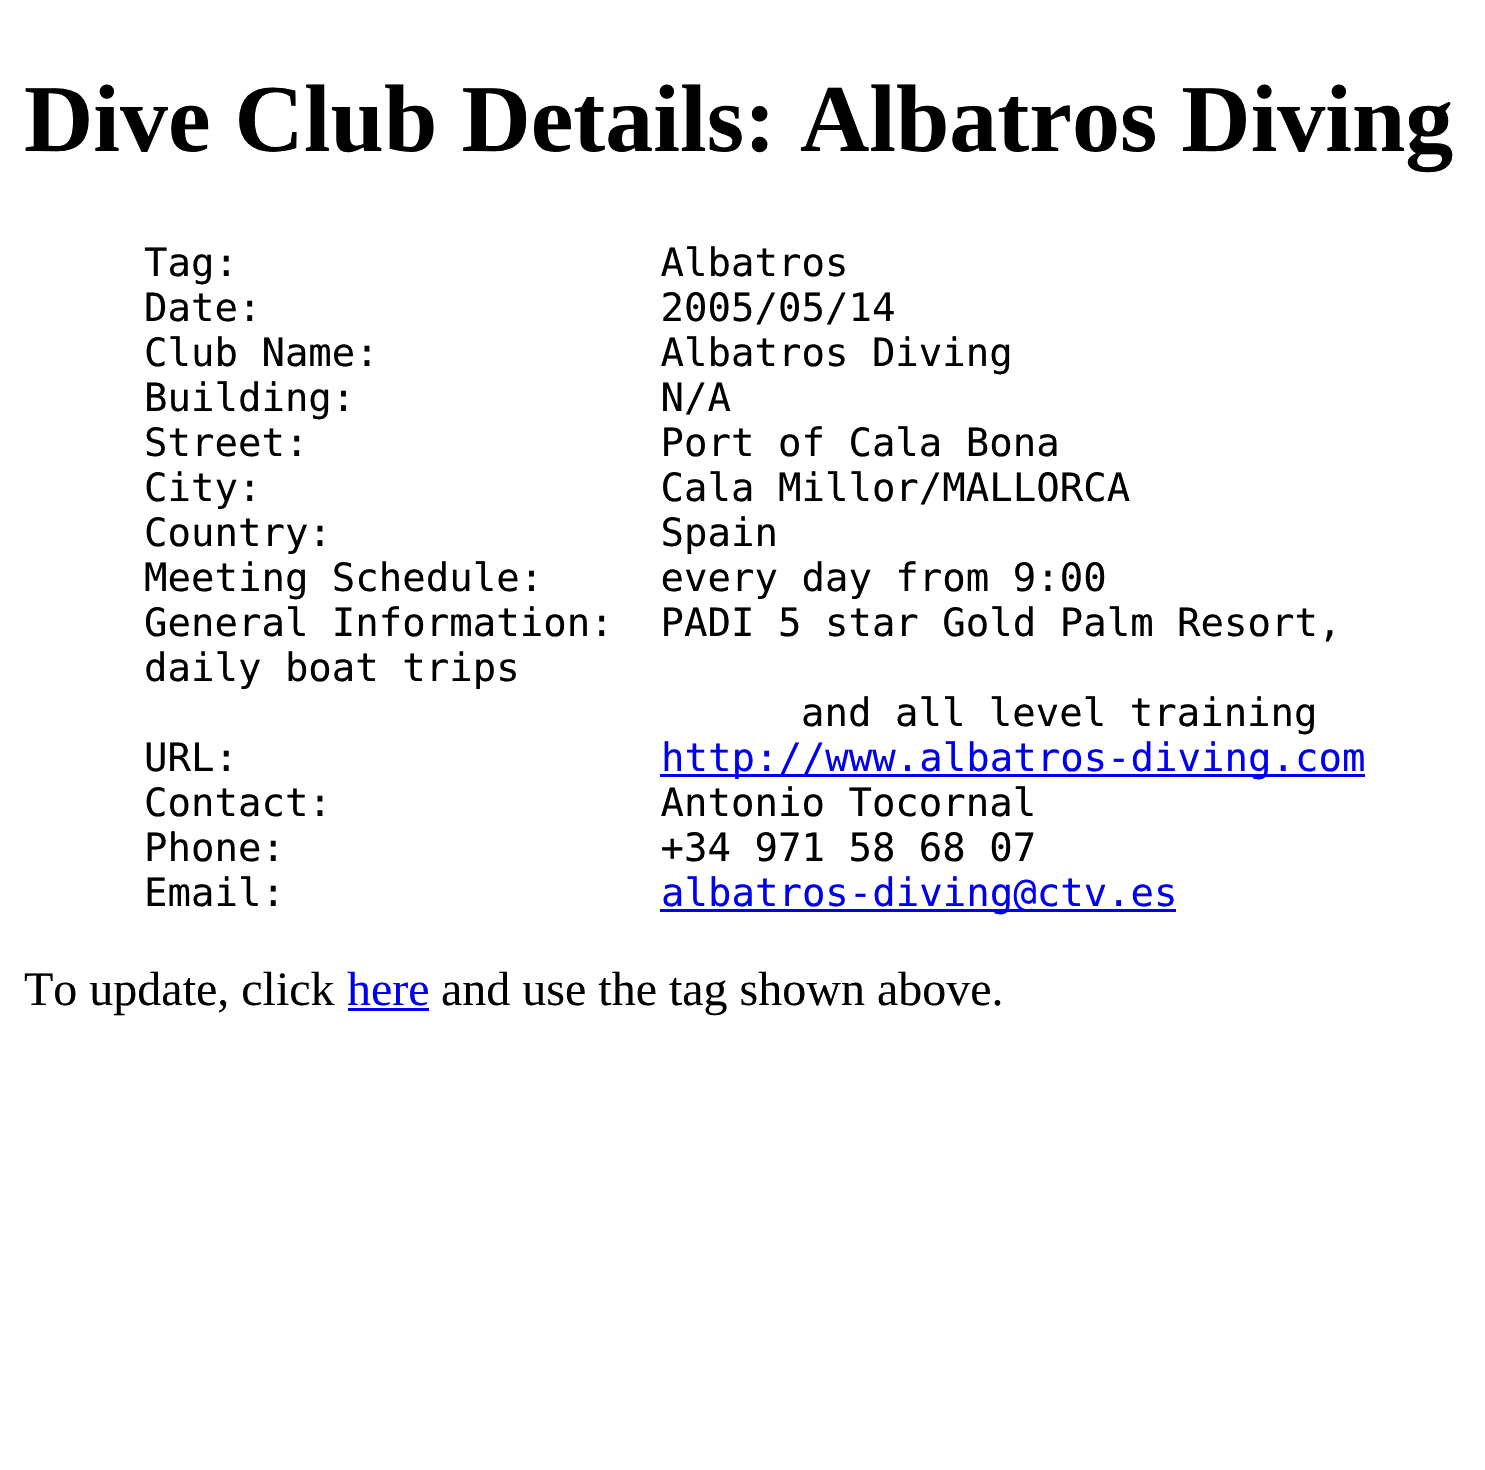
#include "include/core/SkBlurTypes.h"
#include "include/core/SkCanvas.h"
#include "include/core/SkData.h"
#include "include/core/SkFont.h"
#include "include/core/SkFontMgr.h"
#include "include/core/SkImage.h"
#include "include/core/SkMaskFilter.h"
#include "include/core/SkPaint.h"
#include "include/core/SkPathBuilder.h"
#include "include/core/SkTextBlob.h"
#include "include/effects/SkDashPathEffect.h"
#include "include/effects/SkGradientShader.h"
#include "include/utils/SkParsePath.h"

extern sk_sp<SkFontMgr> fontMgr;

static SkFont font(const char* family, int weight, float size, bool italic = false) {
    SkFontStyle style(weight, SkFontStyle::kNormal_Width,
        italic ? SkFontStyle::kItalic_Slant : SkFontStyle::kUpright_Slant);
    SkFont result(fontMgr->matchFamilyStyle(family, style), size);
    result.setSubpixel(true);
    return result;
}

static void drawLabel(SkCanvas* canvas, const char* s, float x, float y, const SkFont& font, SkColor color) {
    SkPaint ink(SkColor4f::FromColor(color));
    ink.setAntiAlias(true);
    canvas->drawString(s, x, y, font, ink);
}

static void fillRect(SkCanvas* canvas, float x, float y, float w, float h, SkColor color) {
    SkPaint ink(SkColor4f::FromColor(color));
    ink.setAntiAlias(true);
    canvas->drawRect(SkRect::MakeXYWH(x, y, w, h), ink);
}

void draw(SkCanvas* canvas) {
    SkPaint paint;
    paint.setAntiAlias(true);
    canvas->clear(0xFFFFFFFF);
    SkFont font1 = font("Liberation Serif", 700, 96);
    drawLabel(canvas, "Dive Club Details: Albatros Diving", 24, 151, font1, 0xFF000000);
    SkFont font2 = font("DejaVu Sans Mono", 400, 39);
    drawLabel(canvas, "Tag:                  Albatros", 144, 276, font2, 0xFF000000);
    drawLabel(canvas, "Date:                 2005/05/14", 144, 321, font2, 0xFF000000);
    drawLabel(canvas, "Club Name:            Albatros Diving", 144, 366, font2, 0xFF000000);
    drawLabel(canvas, "Building:             N/A", 144, 411, font2, 0xFF000000);
    drawLabel(canvas, "Street:               Port of Cala Bona", 144, 456, font2, 0xFF000000);
    drawLabel(canvas, "City:                 Cala Millor/MALLORCA", 144, 501, font2, 0xFF000000);
    drawLabel(canvas, "Country:              Spain", 144, 546, font2, 0xFF000000);
    drawLabel(canvas, "Meeting Schedule:     every day from 9:00", 144, 591, font2, 0xFF000000);
    drawLabel(canvas, "General Information:  PADI 5 star Gold Palm Resort,", 144, 636, font2, 0xFF000000);
    drawLabel(canvas, "daily boat trips", 144, 681, font2, 0xFF000000);
    drawLabel(canvas, "and all level training", 801, 726, font2, 0xFF000000);
    drawLabel(canvas, "URL:", 144, 771, font2, 0xFF000000);
    fillRect(canvas, 660, 774, 705, 3, 0xFF0000EE);
    drawLabel(canvas, "http://www.albatros-diving.com", 661, 771, font2, 0xFF0000EE);
    drawLabel(canvas, "Contact:              Antonio Tocornal", 144, 816, font2, 0xFF000000);
    drawLabel(canvas, "Phone:                +34 971 58 68 07", 144, 861, font2, 0xFF000000);
    drawLabel(canvas, "Email:", 144, 906, font2, 0xFF000000);
    fillRect(canvas, 660, 909, 516, 3, 0xFF0000EE);
    drawLabel(canvas, "albatros-diving@ctv.es", 661, 906, font2, 0xFF0000EE);
    SkFont font3 = font("Liberation Serif", 400, 48);
    drawLabel(canvas, "To update, click", 24, 1005, font3, 0xFF000000);
    drawLabel(canvas, "here", 347, 1005, font3, 0xFF0000EE);
    fillRect(canvas, 348, 1008, 81, 3, 0xFF0000EE);
    drawLabel(canvas, "and use the tag shown above.", 441, 1005, font3, 0xFF000000);
}
